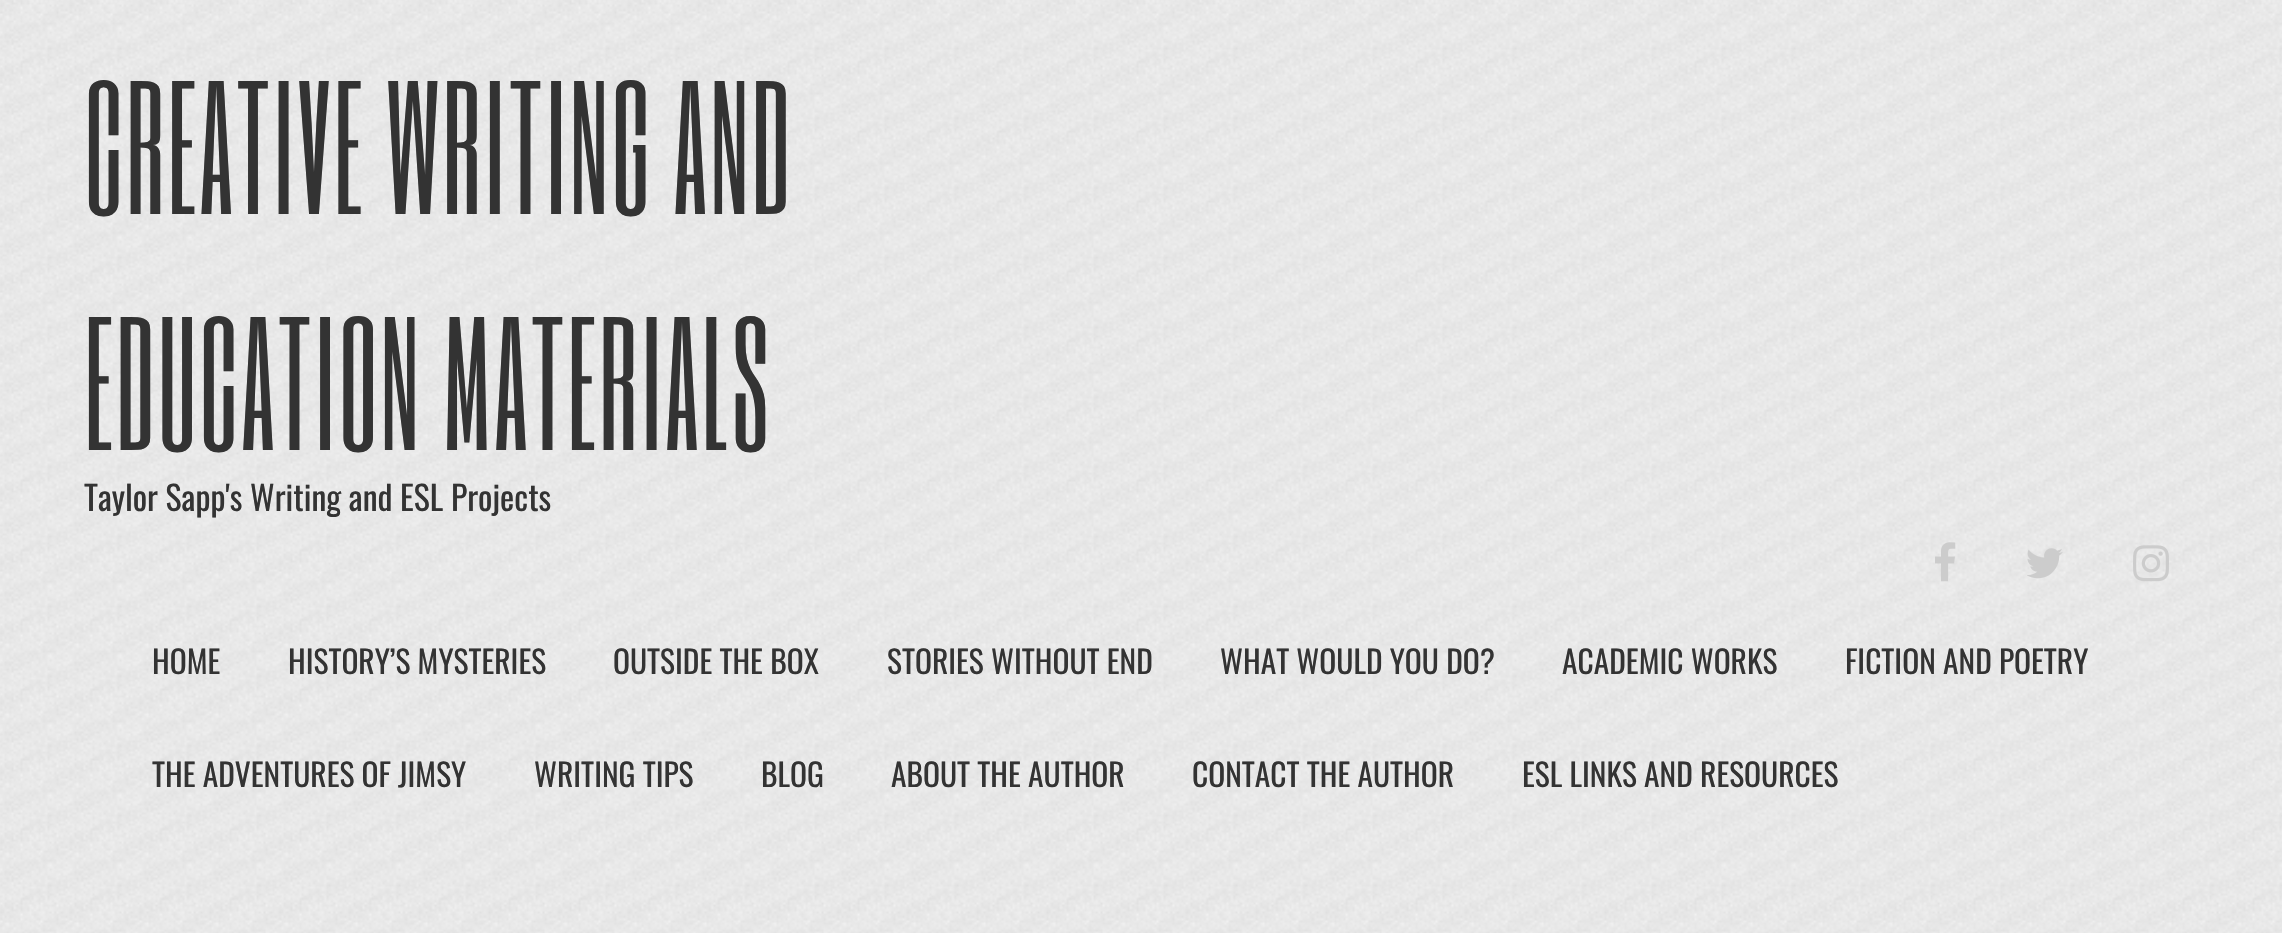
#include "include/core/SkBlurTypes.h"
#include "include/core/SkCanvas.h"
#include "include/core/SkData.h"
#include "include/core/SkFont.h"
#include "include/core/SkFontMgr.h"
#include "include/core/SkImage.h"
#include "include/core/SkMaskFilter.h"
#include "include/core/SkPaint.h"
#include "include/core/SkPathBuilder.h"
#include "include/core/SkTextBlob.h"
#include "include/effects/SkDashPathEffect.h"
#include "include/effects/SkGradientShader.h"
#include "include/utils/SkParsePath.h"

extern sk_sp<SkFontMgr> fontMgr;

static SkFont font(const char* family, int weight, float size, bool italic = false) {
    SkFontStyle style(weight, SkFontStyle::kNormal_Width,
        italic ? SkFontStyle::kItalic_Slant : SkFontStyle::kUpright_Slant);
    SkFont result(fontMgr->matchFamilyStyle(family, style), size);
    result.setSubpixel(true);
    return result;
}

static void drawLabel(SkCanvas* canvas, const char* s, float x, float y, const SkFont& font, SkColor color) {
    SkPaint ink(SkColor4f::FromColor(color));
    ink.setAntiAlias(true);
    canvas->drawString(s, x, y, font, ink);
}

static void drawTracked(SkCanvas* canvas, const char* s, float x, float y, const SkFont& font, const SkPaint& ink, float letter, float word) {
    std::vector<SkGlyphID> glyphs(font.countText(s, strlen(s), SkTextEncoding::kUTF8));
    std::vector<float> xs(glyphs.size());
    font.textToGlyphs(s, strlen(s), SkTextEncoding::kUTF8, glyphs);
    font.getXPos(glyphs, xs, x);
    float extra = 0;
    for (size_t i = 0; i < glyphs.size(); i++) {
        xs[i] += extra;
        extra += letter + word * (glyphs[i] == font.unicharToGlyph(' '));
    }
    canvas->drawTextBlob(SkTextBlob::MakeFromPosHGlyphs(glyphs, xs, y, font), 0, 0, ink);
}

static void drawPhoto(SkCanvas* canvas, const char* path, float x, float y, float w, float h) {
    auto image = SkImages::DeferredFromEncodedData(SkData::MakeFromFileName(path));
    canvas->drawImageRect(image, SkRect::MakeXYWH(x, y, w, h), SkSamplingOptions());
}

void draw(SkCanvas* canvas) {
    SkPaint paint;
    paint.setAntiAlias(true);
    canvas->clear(0xFFFFFFFF);
    drawPhoto(canvas, "assets/img1.png", 0, 0, 2282, 933);
    SkFont font1 = font("Six Caps", 400, 157.5f);
    paint.setColor(0xFF333333);
    drawTracked(canvas, "CREATIVE WRITING AND", 84, 214, font1, paint, 2.25f, 0);
    drawTracked(canvas, "EDUCATION MATERIALS", 84, 450, font1, paint, 2.25f, 0);
    SkFont font2 = font("Oswald", 400, 33.75f);
    drawLabel(canvas, "Taylor Sapp's Writing and ESL Projects", 84, 511, font2, 0xFF333333);
    drawPhoto(canvas, "assets/img2.png", 1935, 542, 21, 40);
    drawPhoto(canvas, "assets/img3.png", 2027, 548, 36, 31);
    drawPhoto(canvas, "assets/img4.png", 2133, 545, 36, 37);
    SkFont font3 = font("Oswald", 400, 31.5f);
    drawLabel(canvas, "HOME", 152, 674, font3, 0xFF333333);
    drawLabel(canvas, "HISTORY’S MYSTERIES", 288, 674, font3, 0xFF333333);
    drawLabel(canvas, "OUTSIDE THE BOX", 613, 674, font3, 0xFF333333);
    drawLabel(canvas, "STORIES WITHOUT END", 887, 674, font3, 0xFF333333);
    drawLabel(canvas, "WHAT WOULD YOU DO?", 1220, 674, font3, 0xFF333333);
    drawLabel(canvas, "ACADEMIC WORKS", 1562, 674, font3, 0xFF333333);
    drawLabel(canvas, "FICTION AND POETRY", 1845, 674, font3, 0xFF333333);
    drawLabel(canvas, "THE ADVENTURES OF JIMSY", 152, 787, font3, 0xFF333333);
    drawLabel(canvas, "WRITING TIPS", 534, 787, font3, 0xFF333333);
    drawLabel(canvas, "BLOG", 761, 787, font3, 0xFF333333);
    drawLabel(canvas, "ABOUT THE AUTHOR", 891, 787, font3, 0xFF333333);
    drawLabel(canvas, "CONTACT THE AUTHOR", 1192, 787, font3, 0xFF333333);
    drawLabel(canvas, "ESL LINKS AND RESOURCES", 1522, 787, font3, 0xFF333333);
}
